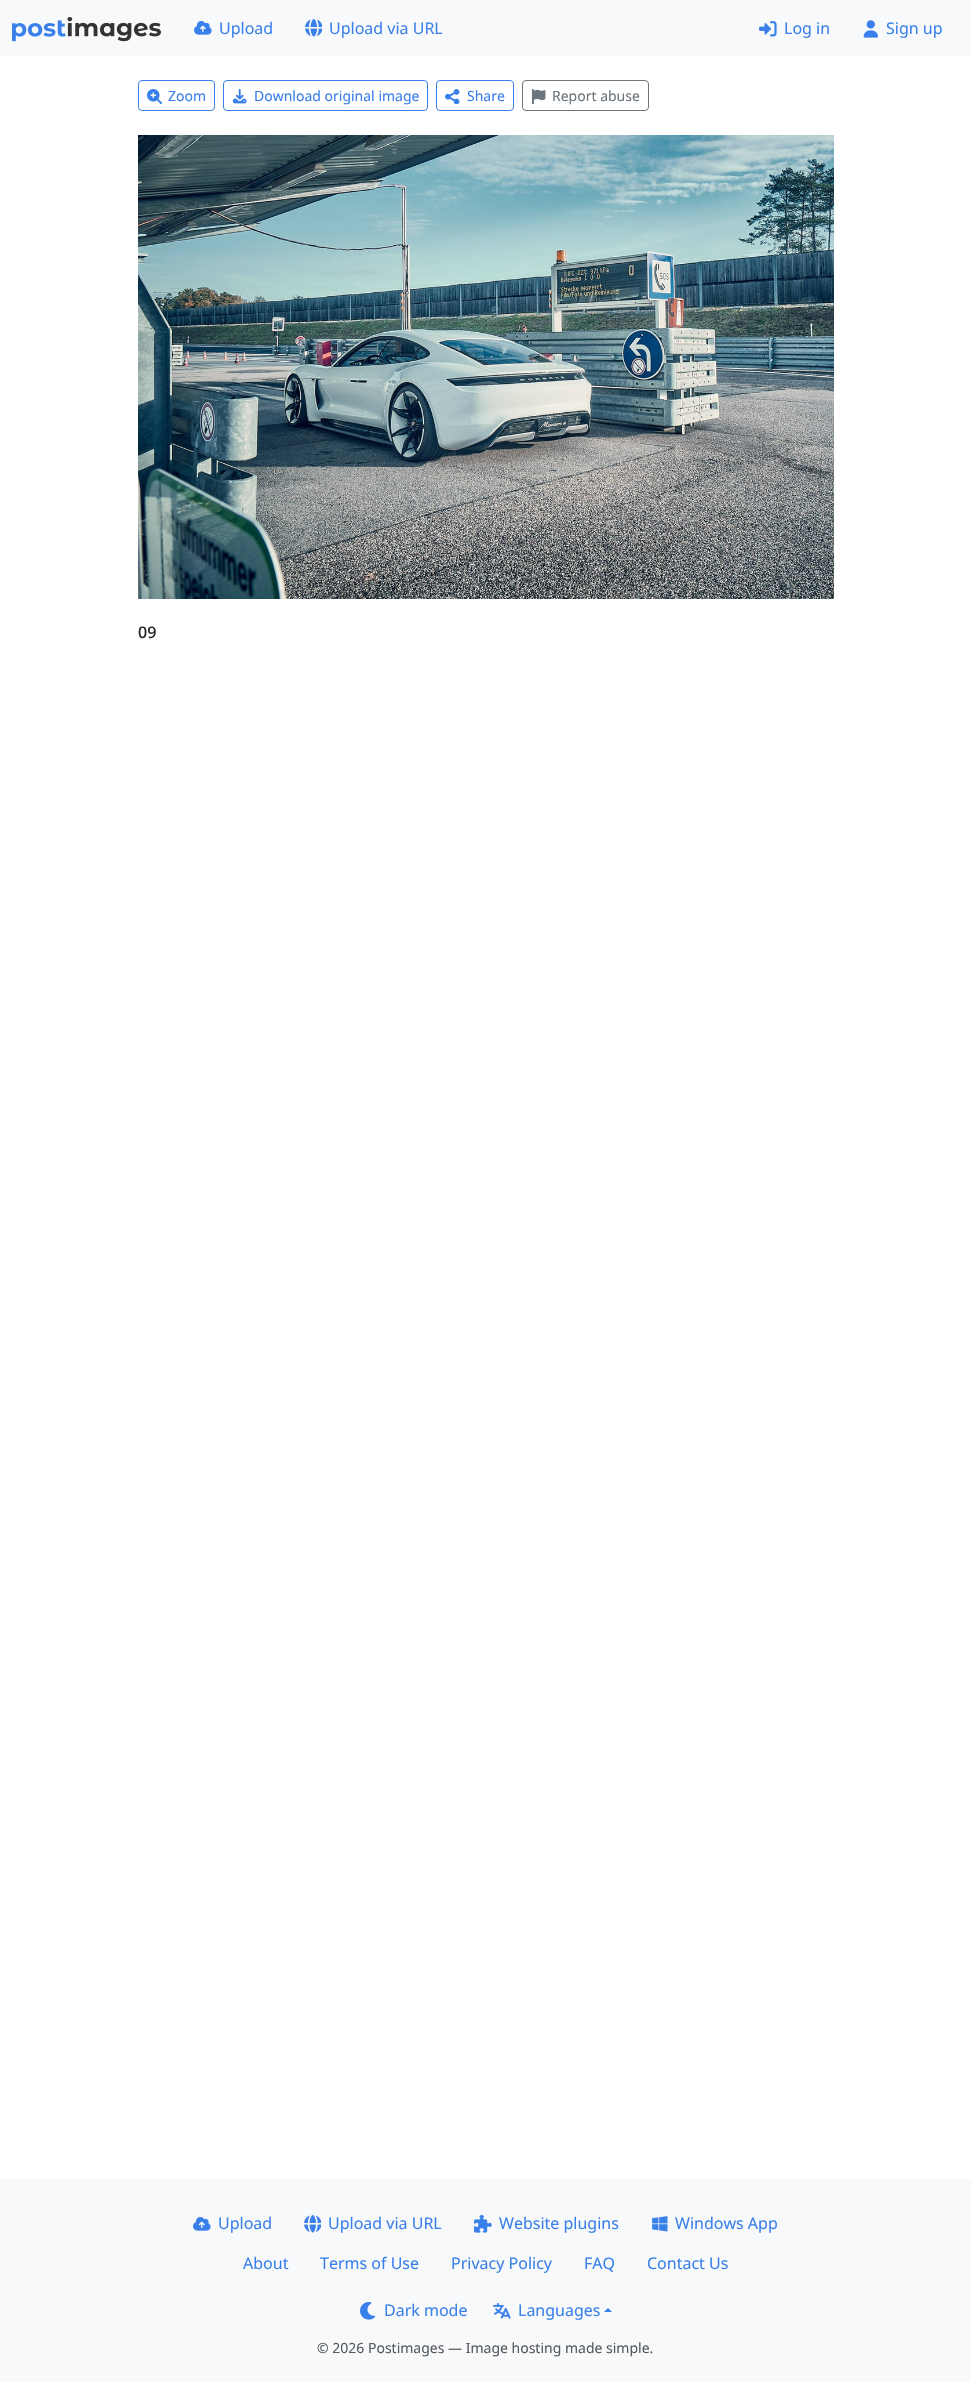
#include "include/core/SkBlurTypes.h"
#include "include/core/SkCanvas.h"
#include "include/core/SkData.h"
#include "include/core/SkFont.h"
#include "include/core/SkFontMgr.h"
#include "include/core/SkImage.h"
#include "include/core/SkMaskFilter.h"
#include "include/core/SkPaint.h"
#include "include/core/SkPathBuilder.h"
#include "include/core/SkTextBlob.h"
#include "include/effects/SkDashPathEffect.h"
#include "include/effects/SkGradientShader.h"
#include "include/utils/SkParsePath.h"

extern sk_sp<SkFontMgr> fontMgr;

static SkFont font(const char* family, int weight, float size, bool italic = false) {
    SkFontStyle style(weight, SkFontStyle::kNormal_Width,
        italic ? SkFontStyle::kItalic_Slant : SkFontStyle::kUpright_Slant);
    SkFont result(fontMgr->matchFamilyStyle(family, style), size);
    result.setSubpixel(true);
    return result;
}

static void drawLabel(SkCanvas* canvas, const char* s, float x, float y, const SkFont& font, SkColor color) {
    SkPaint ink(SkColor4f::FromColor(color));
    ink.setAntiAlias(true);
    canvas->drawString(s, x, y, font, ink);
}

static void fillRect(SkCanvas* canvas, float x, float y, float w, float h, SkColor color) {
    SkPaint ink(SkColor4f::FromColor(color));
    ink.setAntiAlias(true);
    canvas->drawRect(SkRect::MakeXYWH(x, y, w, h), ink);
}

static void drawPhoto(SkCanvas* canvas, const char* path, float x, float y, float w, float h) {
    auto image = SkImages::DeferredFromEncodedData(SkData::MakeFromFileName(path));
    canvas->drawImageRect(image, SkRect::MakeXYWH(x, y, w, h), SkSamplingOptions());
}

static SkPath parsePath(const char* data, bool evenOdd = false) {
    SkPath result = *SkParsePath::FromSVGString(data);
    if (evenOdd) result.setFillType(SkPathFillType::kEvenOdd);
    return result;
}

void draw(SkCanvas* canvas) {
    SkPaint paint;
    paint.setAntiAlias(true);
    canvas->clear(0xFFFFFFFF);
    fillRect(canvas, 0, 0, 971, 56, 0xFFF8F9FA);
    drawPhoto(canvas, "assets/img1.png", 12, 17, 149, 25);
    drawPhoto(canvas, "assets/img2.png", 194, 21, 18, 14);
    SkFont font1 = font("Noto Sans", 400, 16);
    drawLabel(canvas, "Upload", 219, 34, font1, 0xFF3A80EA);
    drawPhoto(canvas, "assets/img3.png", 305, 19, 17, 18);
    drawLabel(canvas, "Upload via URL", 329, 34, font1, 0xFF3A80EA);
    drawPhoto(canvas, "assets/img4.png", 759, 21, 18, 16);
    drawLabel(canvas, "Log in", 784, 34, font1, 0xFF3A80EA);
    drawPhoto(canvas, "assets/img5.png", 863, 20, 15, 18);
    drawLabel(canvas, "Sign up", 886, 34, font1, 0xFF3A80EA);
    paint.setStroke(true);
    paint.setStrokeWidth(1);
    paint.setColor(0xFF3A80EA);
    canvas->drawRoundRect(SkRect::MakeXYWH(138.5f, 80.5f, 76, 30), 3.5f, 3.5f, paint);
    drawPhoto(canvas, "assets/img6.png", 147, 89, 15, 15);
    SkFont font2 = font("Noto Sans", 400, 14);
    drawLabel(canvas, "Zoom", 168, 101, font2, 0xFF3A80EA);
    canvas->drawRoundRect(SkRect::MakeXYWH(223.5f, 80.5f, 204, 30), 3.5f, 3.5f, paint);
    drawPhoto(canvas, "assets/img7.png", 232, 89, 15, 15);
    drawLabel(canvas, "Download original image", 254, 101, font2, 0xFF3A80EA);
    canvas->drawRoundRect(SkRect::MakeXYWH(436.5f, 80.5f, 77, 30), 3.5f, 3.5f, paint);
    drawPhoto(canvas, "assets/img8.png", 445, 89, 15, 15);
    drawLabel(canvas, "Share", 467, 101, font2, 0xFF3A80EA);
    paint.setColor(0xFF6C757D);
    canvas->drawRoundRect(SkRect::MakeXYWH(522.5f, 80.5f, 126, 30), 3.5f, 3.5f, paint);
    drawPhoto(canvas, "assets/img9.png", 531, 89, 15, 15);
    drawLabel(canvas, "Report abuse", 552, 101, font2, 0xFF6C757D);
    drawPhoto(canvas, "assets/img10.png", 138, 135, 696, 464);
    SkFont font3 = font("Noto Sans", 500, 16);
    drawLabel(canvas, "09", 138, 638, font3, 0xFF212529);
    fillRect(canvas, 0, 2179, 971, 203, 0xFFF8F9FA);
    drawPhoto(canvas, "assets/img2.png", 193, 2217, 18, 14);
    drawLabel(canvas, "Upload", 218, 2229, font1, 0xFF3A80EA);
    drawPhoto(canvas, "assets/img3.png", 304, 2215, 17, 18);
    drawLabel(canvas, "Upload via URL", 328, 2229, font1, 0xFF3A80EA);
    drawPhoto(canvas, "assets/img11.png", 474, 2215, 18, 18);
    drawLabel(canvas, "Website plugins", 499, 2229, font1, 0xFF3A80EA);
    drawPhoto(canvas, "assets/img12.png", 652, 2216, 16, 16);
    drawLabel(canvas, "Windows App", 675, 2229, font1, 0xFF3A80EA);
    drawLabel(canvas, "About", 243, 2269, font1, 0xFF3A80EA);
    drawLabel(canvas, "Terms of Use", 320, 2269, font1, 0xFF3A80EA);
    drawLabel(canvas, "Privacy Policy", 451, 2269, font1, 0xFF3A80EA);
    drawLabel(canvas, "FAQ", 584, 2269, font1, 0xFF3A80EA);
    drawLabel(canvas, "Contact Us", 647, 2269, font1, 0xFF3A80EA);
    drawPhoto(canvas, "assets/img13.png", 360, 2302, 16, 18);
    drawLabel(canvas, "Dark mode", 384, 2316, font1, 0xFF3A80EA);
    drawPhoto(canvas, "assets/img14.png", 493, 2303, 18, 16);
    drawLabel(canvas, "Languages", 518, 2316, font1, 0xFF3A80EA);
    paint.setStroke(false);
    paint.setColor(0xFF3A80EA);
    canvas->drawPath(parsePath("M612 2312H604L608 2308Z"), paint);
    drawLabel(canvas, "© 2026 Postimages — Image hosting made simple.", 317, 2353, font2, 0xFF575A5D);
}
